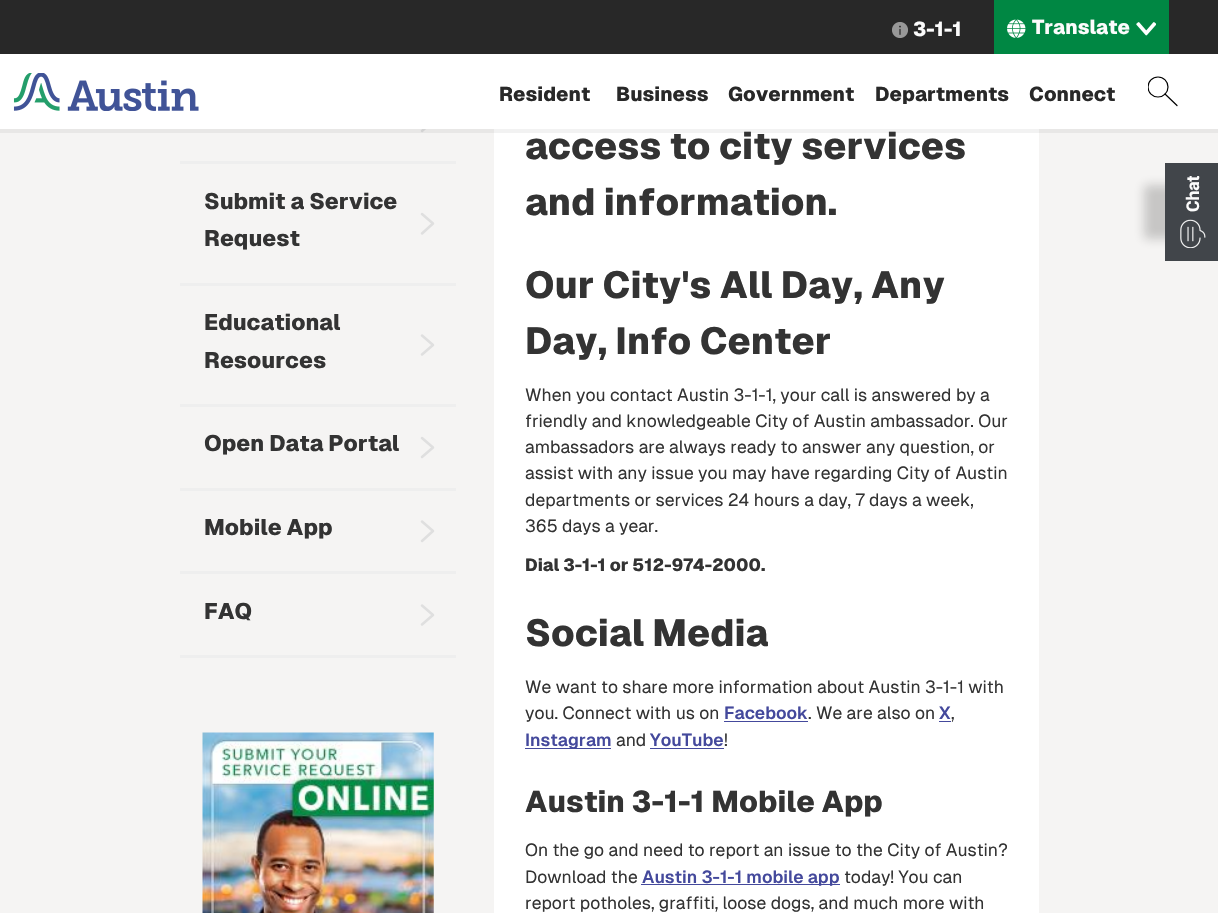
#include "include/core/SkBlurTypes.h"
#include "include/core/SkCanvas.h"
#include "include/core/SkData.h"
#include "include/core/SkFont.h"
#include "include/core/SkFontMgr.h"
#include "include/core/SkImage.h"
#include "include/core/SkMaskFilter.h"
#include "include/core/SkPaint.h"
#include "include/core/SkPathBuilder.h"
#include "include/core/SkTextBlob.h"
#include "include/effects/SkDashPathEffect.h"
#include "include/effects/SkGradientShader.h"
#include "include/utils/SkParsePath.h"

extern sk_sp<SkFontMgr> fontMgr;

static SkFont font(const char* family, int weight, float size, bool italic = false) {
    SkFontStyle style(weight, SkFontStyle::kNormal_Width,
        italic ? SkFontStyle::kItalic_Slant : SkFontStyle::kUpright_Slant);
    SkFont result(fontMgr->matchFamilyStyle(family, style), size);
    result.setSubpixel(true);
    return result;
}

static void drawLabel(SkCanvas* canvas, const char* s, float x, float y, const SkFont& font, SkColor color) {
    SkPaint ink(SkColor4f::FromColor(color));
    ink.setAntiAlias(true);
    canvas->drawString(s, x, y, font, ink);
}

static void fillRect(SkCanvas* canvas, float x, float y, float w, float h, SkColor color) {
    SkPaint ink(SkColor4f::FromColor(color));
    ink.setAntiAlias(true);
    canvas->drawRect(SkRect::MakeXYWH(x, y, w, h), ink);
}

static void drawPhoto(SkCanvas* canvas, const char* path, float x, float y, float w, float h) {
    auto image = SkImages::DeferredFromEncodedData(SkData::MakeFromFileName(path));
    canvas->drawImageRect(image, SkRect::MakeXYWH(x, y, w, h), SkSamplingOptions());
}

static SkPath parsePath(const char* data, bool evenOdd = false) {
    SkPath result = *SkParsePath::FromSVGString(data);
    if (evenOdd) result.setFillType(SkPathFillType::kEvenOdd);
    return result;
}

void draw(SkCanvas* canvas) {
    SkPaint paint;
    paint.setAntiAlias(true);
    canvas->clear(0xFFF5F4F3);
    paint.setStroke(true);
    paint.setStrokeWidth(2.5f);
    paint.setStrokeCap(SkPaint::kRound_Cap);
    paint.setStrokeJoin(SkPaint::kRound_Join);
    paint.setColor(0xFFDFDFDF);
    canvas->drawPath(parsePath("M422 131L433 121L422 111.5"), paint);
    fillRect(canvas, 494, 129, 545, 784, 0xFFFFFFFF);
    paint.setStroke(false);
    paint.setColor(0x0D000000);
    canvas->drawPath(parsePath("M0 129V133H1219V4V129Z"), paint);
    fillRect(canvas, 0, 54, 1218, 75, 0xFFFFFFFF);
    fillRect(canvas, 0, 0, 1218, 54, 0xFF282828);
    drawPhoto(canvas, "assets/img1.png", 892, 22, 16, 16);
    SkFont font1 = font("Geist", 800, 20);
    drawLabel(canvas, "3-1-1", 913, 36, font1, 0xFFFCFCFC);
    fillRect(canvas, 994, 0, 175, 54, 0xFF008743);
    drawPhoto(canvas, "assets/img2.png", 1007, 19, 19, 19);
    drawLabel(canvas, "Translate", 1032, 34, font1, 0xFFFCFCFC);
    drawPhoto(canvas, "assets/img3.png", 1136, 22, 20, 14);
    drawPhoto(canvas, "assets/img4.png", 13, 73, 186, 38);
    canvas->save();
    canvas->clipRect(SkRect::MakeXYWH(1148, 76, 30, 30));
    paint.setStroke(true);
    paint.setStrokeWidth(1.2f);
    paint.setStrokeCap(SkPaint::kButt_Cap);
    paint.setStrokeJoin(SkPaint::kMiter_Join);
    paint.setColor(0xFF000000);
    canvas->drawCircle(1158, 87, 10, paint);
    canvas->restore();
    paint.setStrokeCap(SkPaint::kRound_Cap);
    paint.setStrokeJoin(SkPaint::kRound_Join);
    canvas->drawPath(parsePath("M1165 94L1177 105.5"), paint);
    drawLabel(canvas, "Resident", 499, 101, font1, 0xFF282828);
    drawLabel(canvas, "Business", 616, 101, font1, 0xFF282828);
    drawLabel(canvas, "Government", 728, 101, font1, 0xFF282828);
    drawLabel(canvas, "Departments", 875, 101, font1, 0xFF282828);
    drawLabel(canvas, "Connect", 1029, 101, font1, 0xFF282828);
    fillRect(canvas, 180, 161, 276, 3, 0xFFEEEEEE);
    fillRect(canvas, 180, 283, 276, 3, 0xFFEEEEEE);
    SkFont font2 = font("Geist", 800, 22.5f);
    drawLabel(canvas, "Submit a Service", 204, 209, font2, 0xFF333333);
    paint.setStrokeWidth(2.5f);
    paint.setColor(0xFFDFDFDF);
    canvas->drawPath(parsePath("M422 233.5L433 223.5L422 214"), paint);
    drawLabel(canvas, "Request", 204, 246, font2, 0xFF333333);
    fillRect(canvas, 180, 404, 276, 3, 0xFFEEEEEE);
    drawLabel(canvas, "Educational", 204, 330, font2, 0xFF333333);
    canvas->drawPath(parsePath("M422 354.5L433 345L422 335.5"), paint);
    drawLabel(canvas, "Resources", 204, 368, font2, 0xFF333333);
    fillRect(canvas, 180, 488, 276, 3, 0xFFEEEEEE);
    drawLabel(canvas, "Open Data Portal", 204, 451, font2, 0xFF333333);
    canvas->drawPath(parsePath("M422 457L433 447.5L422 438"), paint);
    fillRect(canvas, 180, 571, 276, 3, 0xFFEEEEEE);
    drawLabel(canvas, "Mobile App", 204, 535, font2, 0xFF333333);
    canvas->drawPath(parsePath("M422 541L433 531L422 521.5"), paint);
    fillRect(canvas, 180, 655, 276, 3, 0xFFEEEEEE);
    drawLabel(canvas, "FAQ", 204, 619, font2, 0xFF333333);
    canvas->drawPath(parsePath("M422 624.5L433 615L422 605.5"), paint);
    drawPhoto(canvas, "assets/img5.png", 202, 732, 232, 181);
    SkFont font3 = font("Geist", 800, 37.5f);
    drawLabel(canvas, "access to city services", 525, 159, font3, 0xFF333333);
    drawLabel(canvas, "and information.", 525, 215, font3, 0xFF333333);
    drawLabel(canvas, "Our City's All Day, Any", 525, 298, font3, 0xFF333333);
    drawLabel(canvas, "Day, Info Center", 525, 354, font3, 0xFF333333);
    SkFont font4 = font("Geist", 400, 17.5f);
    drawLabel(canvas, "When you contact Austin 3-1-1, your call is answered by a", 525, 401, font4, 0xFF333333);
    drawLabel(canvas, "friendly and knowledgeable City of Austin ambassador. Our", 525, 427, font4, 0xFF333333);
    drawLabel(canvas, "ambassadors are always ready to answer any question, or", 525, 453, font4, 0xFF333333);
    drawLabel(canvas, "assist with any issue you may have regarding City of Austin", 525, 479, font4, 0xFF333333);
    drawLabel(canvas, "departments or services 24 hours a day, 7 days a week,", 525, 506, font4, 0xFF333333);
    drawLabel(canvas, "365 days a year.", 525, 532, font4, 0xFF333333);
    SkFont font5 = font("Geist", 800, 17.5f);
    drawLabel(canvas, "Dial 3-1-1 or 512-974-2000.", 525, 571, font5, 0xFF333333);
    drawLabel(canvas, "Social Media", 525, 646, font3, 0xFF333333);
    drawLabel(canvas, "We want to share more information about Austin 3-1-1 with", 525, 693, font4, 0xFF333333);
    drawLabel(canvas, "you. Connect with us on", 525, 719, font4, 0xFF333333);
    SkFont font6 = font("Geist", 600, 17.5f);
    drawLabel(canvas, "Facebook", 724, 719, font6, 0xFF44499C);
    fillRect(canvas, 724, 721, 84, 1, 0xFF44499C);
    drawLabel(canvas, ". We are also on", 808, 719, font4, 0xFF333333);
    drawLabel(canvas, "X", 939, 719, font6, 0xFF44499C);
    fillRect(canvas, 939, 721, 12, 1, 0xFF44499C);
    drawLabel(canvas, ",", 951, 719, font4, 0xFF333333);
    fillRect(canvas, 525, 748, 86, 1, 0xFF44499C);
    drawLabel(canvas, "Instagram", 525, 746, font6, 0xFF44499C);
    drawLabel(canvas, "and", 616, 746, font4, 0xFF333333);
    drawLabel(canvas, "YouTube", 650, 746, font6, 0xFF44499C);
    fillRect(canvas, 650, 748, 74, 1, 0xFF44499C);
    drawLabel(canvas, "!", 724, 746, font4, 0xFF333333);
    SkFont font7 = font("Geist", 800, 30);
    drawLabel(canvas, "Austin 3-1-1 Mobile App", 525, 812, font7, 0xFF333333);
    drawLabel(canvas, "On the go and need to report an issue to the City of Austin?", 525, 856, font4, 0xFF333333);
    drawLabel(canvas, "Download the", 525, 883, font4, 0xFF333333);
    fillRect(canvas, 641, 884, 199, 1, 0xFF44499C);
    drawLabel(canvas, "Austin 3-1-1 mobile app", 642, 883, font6, 0xFF44499C);
    drawLabel(canvas, "today! You can", 844, 883, font4, 0xFF333333);
    drawLabel(canvas, "report potholes, graffiti, loose dogs, and much more with", 525, 909, font4, 0xFF333333);
    paint.setStroke(false);
    paint.setColor(0x33111111);
    paint.setMaskFilter(SkMaskFilter::MakeBlur(kNormal_SkBlurStyle, 5));
    canvas->drawRect(SkRect::MakeXYWH(1144, 185, 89, 54), paint);
    paint.setMaskFilter(nullptr);
    fillRect(canvas, 1165, 163, 53, 98, 0xFF41454A);
    SkFont font8 = font("Roboto", 700, 17.5f);
    canvas->save();
    canvas->rotate(-90, 1199, 212);
    drawLabel(canvas, "Chat", 1199, 212, font8, 0xFFFCFCFC);
    canvas->restore();
    drawPhoto(canvas, "assets/img6.png", 1180, 219, 26, 30);
}
